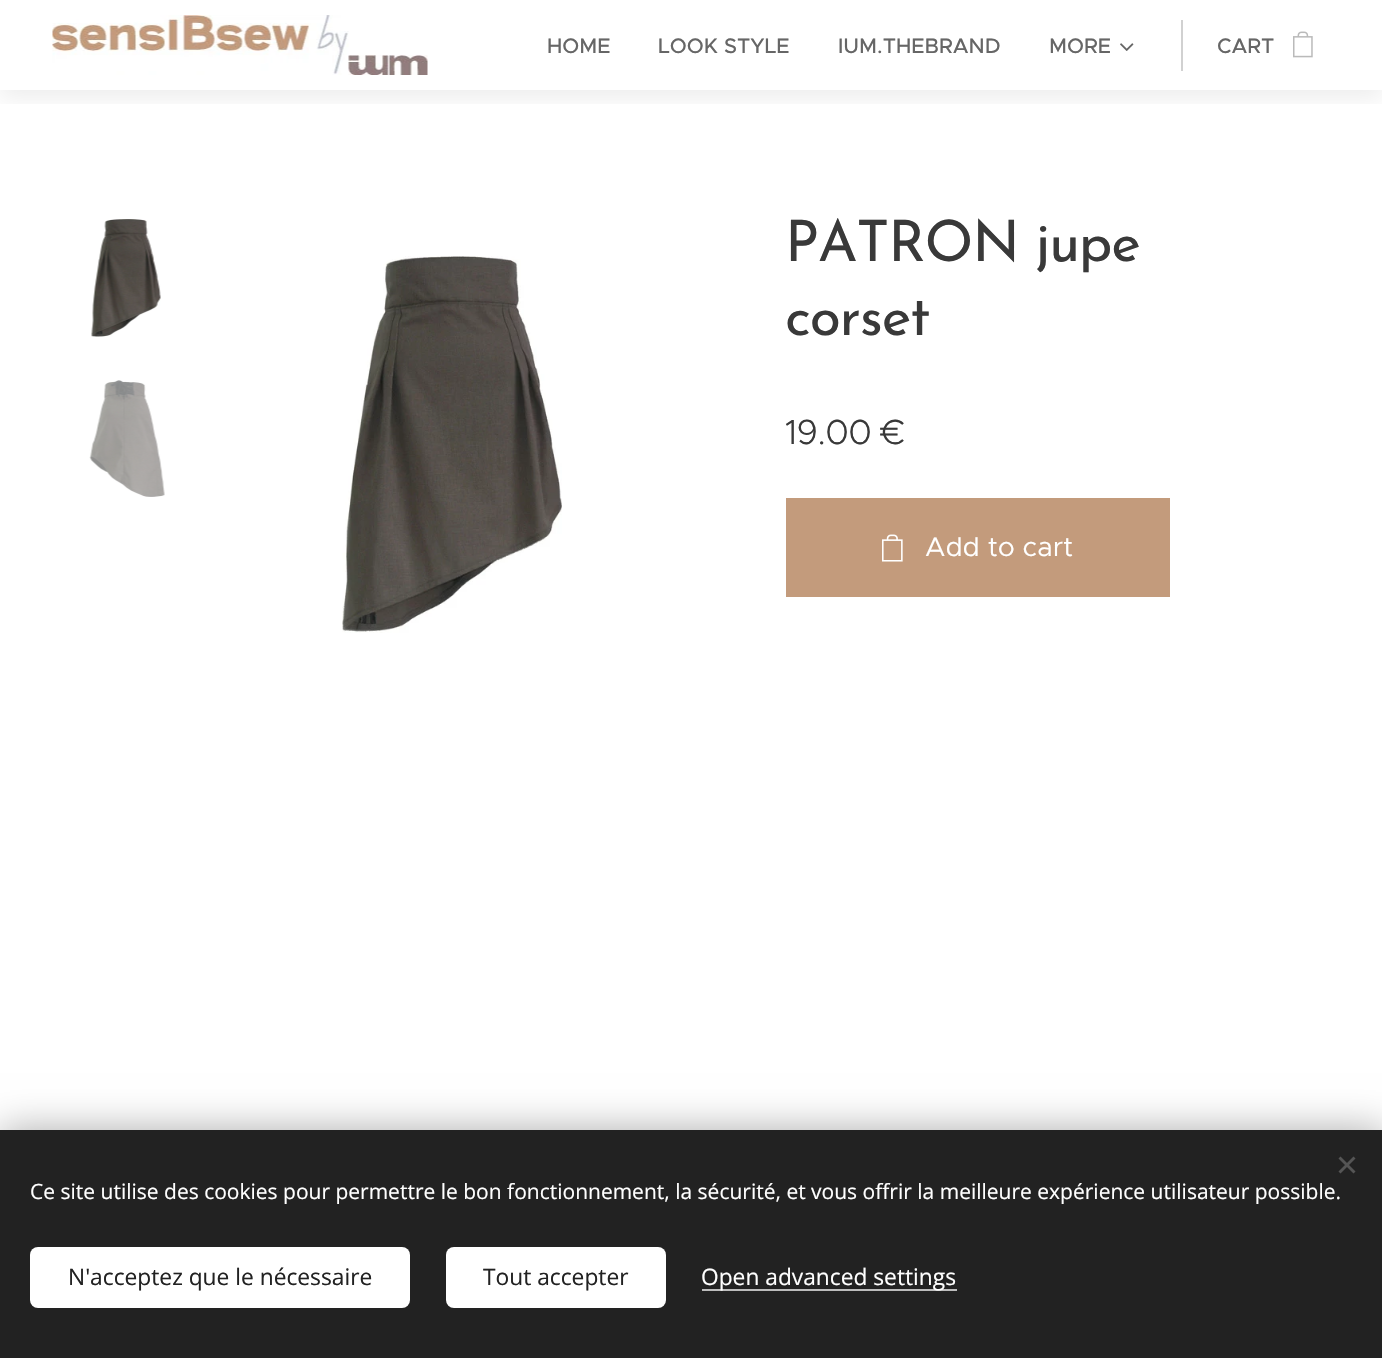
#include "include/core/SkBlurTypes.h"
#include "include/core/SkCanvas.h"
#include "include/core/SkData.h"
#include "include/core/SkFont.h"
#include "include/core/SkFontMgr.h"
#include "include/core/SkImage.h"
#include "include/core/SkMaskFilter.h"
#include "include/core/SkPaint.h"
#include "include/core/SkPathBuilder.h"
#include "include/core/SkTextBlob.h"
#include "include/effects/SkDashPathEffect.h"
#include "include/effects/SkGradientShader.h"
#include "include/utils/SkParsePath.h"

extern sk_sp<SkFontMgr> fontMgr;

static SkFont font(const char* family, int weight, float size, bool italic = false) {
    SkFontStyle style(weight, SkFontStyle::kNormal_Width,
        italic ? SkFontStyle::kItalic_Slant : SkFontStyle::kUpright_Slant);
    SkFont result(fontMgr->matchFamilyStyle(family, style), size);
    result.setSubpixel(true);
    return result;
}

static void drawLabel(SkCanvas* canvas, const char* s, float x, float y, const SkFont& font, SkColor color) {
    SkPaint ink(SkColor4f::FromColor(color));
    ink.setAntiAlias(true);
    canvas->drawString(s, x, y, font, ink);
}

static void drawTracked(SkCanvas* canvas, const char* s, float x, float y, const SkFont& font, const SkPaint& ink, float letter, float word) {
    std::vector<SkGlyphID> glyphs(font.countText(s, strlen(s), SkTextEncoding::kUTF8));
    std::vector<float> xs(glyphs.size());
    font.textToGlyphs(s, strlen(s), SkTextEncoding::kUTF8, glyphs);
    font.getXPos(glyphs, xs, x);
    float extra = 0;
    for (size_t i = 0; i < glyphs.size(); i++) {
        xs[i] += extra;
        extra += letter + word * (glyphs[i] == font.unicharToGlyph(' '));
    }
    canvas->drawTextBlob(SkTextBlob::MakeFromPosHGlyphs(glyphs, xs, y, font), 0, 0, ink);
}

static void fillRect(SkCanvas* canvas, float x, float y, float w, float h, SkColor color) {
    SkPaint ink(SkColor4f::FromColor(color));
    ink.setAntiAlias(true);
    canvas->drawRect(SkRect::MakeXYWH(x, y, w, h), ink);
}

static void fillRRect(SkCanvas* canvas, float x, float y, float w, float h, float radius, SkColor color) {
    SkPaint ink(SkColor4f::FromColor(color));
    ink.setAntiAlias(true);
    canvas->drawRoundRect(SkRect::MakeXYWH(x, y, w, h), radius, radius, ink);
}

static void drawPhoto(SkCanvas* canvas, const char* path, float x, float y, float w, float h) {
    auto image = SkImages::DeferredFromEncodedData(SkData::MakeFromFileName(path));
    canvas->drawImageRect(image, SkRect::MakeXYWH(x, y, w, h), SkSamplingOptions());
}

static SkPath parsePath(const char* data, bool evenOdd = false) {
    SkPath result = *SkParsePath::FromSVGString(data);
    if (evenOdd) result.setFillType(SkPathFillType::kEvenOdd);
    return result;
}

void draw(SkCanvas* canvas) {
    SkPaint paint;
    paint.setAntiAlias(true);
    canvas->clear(0xFFFFFFFF);
    canvas->save();
    canvas->clipRect(SkRect::MakeXYWH(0, 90, 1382, 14));
    paint.setColor(0x12000000);
    paint.setMaskFilter(SkMaskFilter::MakeBlur(kNormal_SkBlurStyle, 11));
    canvas->drawRect(SkRect::MakeXYWH(0, 8, 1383, 90), paint);
    paint.setMaskFilter(nullptr);
    canvas->restore();
    drawPhoto(canvas, "assets/img1.png", 52, 15, 376, 60);
    SkFont font1 = font("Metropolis", 500, 21);
    drawLabel(canvas, "HOME", 547, 53, font1, 0xFF666666);
    drawLabel(canvas, "LOOK STYLE", 658, 53, font1, 0xFF666666);
    drawLabel(canvas, "IUM.THEBRAND", 838, 53, font1, 0xFF666666);
    drawLabel(canvas, "MORE", 1049, 53, font1, 0xFF666666);
    drawPhoto(canvas, "assets/img2.png", 1120, 43, 14, 8);
    fillRect(canvas, 1181, 20, 2, 51, 0xFFD1D1D1);
    drawLabel(canvas, "CART", 1217, 53, font1, 0xFF666666);
    drawPhoto(canvas, "assets/img3.png", 1293, 31, 20, 27);
    drawPhoto(canvas, "assets/img4.png", 91, 219, 70, 118);
    drawPhoto(canvas, "assets/img5.png", 89, 380, 76, 117);
    drawPhoto(canvas, "assets/img6.png", 342, 256, 220, 377);
    SkFont font2 = font("Josefin Sans", 400, 57);
    paint.setColor(0xFF393939);
    drawTracked(canvas, "PATRON jupe", 785, 261, font2, paint, -1.25f, 0);
    drawTracked(canvas, "corset", 785, 335, font2, paint, -1.25f, 0);
    SkFont font3 = font("Metropolis", 300, 35);
    drawTracked(canvas, "19.00 €", 785, 444, font3, paint, -0.5f, 0);
    fillRect(canvas, 786, 498, 384, 99, 0xFFC39B7C);
    drawPhoto(canvas, "assets/img7.png", 882, 534, 21, 28);
    SkFont font4 = font("Metropolis", 400, 27);
    drawLabel(canvas, "Add to cart", 925, 556, font4, 0xFFFFFFFF);
    paint.setColor(0x54000000);
    paint.setMaskFilter(SkMaskFilter::MakeBlur(kNormal_SkBlurStyle, 19));
    canvas->drawRect(SkRect::MakeXYWH(0, 1130, 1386, 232), paint);
    paint.setMaskFilter(nullptr);
    fillRect(canvas, 0, 1130, 1382, 228, 0xFF222222);
    paint.setColor(0xFF555555);
    canvas->drawPath(parsePath("M1338.5 1171.5L1353.5 1156.5L1355.5 1158.5L1340.5 1173.5Z"), paint);
    canvas->drawPath(parsePath("M1340.5 1156.5L1355.5 1171.5L1353.5 1173.5L1338.5 1158.5Z"), paint);
    SkFont font5 = font("Open Sans", 400, 21);
    drawLabel(canvas, "Ce site utilise des cookies pour permettre le bon fonctionnement, la sécurité, et vous offrir la meilleure expérience utilisateur possible.", 30, 1199, font5, 0xFFFFFFFF);
    fillRRect(canvas, 30, 1247, 380, 61, 8, 0xFFFFFFFF);
    SkFont font6 = font("Open Sans", 400, 22.75f);
    drawLabel(canvas, "N'acceptez que le nécessaire", 68, 1285, font6, 0xFF222222);
    fillRRect(canvas, 446, 1247, 220, 61, 8, 0xFFFFFFFF);
    drawLabel(canvas, "Tout accepter", 483, 1285, font6, 0xFF222222);
    fillRect(canvas, 702, 1289, 255, 2, 0xFFBDBDBD);
    drawLabel(canvas, "Open advanced settings", 701, 1285, font6, 0xFFFFFFFF);
}
